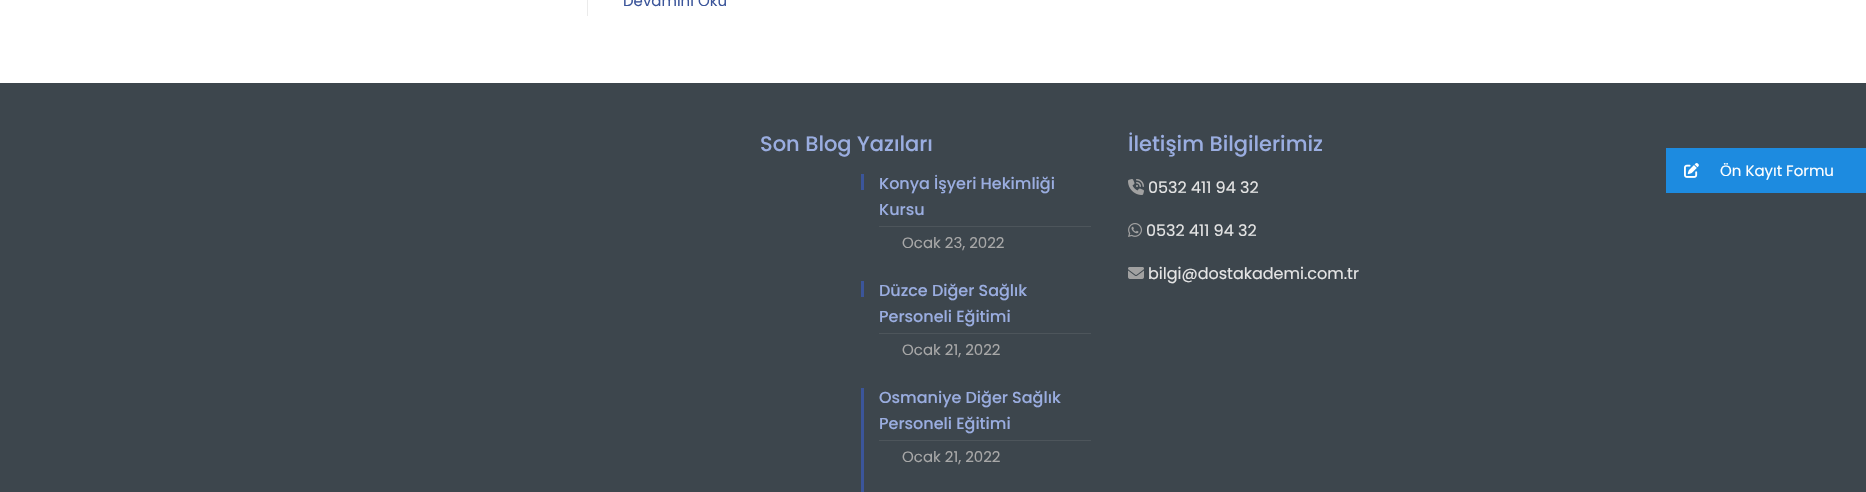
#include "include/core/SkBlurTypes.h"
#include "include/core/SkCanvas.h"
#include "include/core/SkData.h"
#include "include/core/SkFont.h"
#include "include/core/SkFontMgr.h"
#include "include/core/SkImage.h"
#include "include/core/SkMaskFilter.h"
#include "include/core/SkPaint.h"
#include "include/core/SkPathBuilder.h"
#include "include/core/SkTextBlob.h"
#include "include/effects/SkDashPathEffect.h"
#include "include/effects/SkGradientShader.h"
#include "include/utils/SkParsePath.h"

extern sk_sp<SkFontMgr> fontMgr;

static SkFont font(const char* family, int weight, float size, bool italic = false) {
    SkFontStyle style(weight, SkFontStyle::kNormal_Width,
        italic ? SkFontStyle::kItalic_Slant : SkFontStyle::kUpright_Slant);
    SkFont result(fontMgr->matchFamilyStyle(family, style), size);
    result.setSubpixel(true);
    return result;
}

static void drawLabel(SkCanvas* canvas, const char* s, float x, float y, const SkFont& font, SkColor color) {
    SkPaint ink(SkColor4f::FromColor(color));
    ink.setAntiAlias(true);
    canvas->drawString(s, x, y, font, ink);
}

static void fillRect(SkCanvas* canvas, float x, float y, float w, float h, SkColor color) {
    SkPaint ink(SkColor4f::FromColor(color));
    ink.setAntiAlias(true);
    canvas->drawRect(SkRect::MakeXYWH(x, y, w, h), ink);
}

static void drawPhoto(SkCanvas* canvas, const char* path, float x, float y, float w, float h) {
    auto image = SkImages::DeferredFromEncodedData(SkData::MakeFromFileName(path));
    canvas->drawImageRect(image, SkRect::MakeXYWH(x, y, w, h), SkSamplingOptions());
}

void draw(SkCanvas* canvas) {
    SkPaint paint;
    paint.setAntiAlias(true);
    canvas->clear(0xFFFFFFFF);
    fillRect(canvas, 587, 0, 1, 16, 0xFFEBEBEB);
    SkFont font1 = font("Poppins", 400, 15);
    drawLabel(canvas, "Devamını Oku", 623, 6, font1, 0xFF3B559A);
    fillRect(canvas, 0, 83, 1866, 409, 0xFF3D464D);
    SkFont font2 = font("Poppins", 500, 21);
    drawLabel(canvas, "Son Blog Yazıları", 760, 151, font2, 0xFF9AADE0);
    fillRect(canvas, 861, 174, 3, 16, 0xFF3B559A);
    fillRect(canvas, 879, 226, 212, 1, 0xFF4D555B);
    SkFont font3 = font("Poppins", 500, 16);
    drawLabel(canvas, "Konya İşyeri Hekimliği", 879, 189, font3, 0xFF9AADE0);
    drawLabel(canvas, "Kursu", 879, 215, font3, 0xFF9AADE0);
    drawLabel(canvas, "Ocak 23, 2022", 902, 248, font1, 0xFFA8A8A8);
    fillRect(canvas, 861, 281, 3, 16, 0xFF3B559A);
    fillRect(canvas, 879, 333, 212, 1, 0xFF4D555B);
    drawLabel(canvas, "Düzce Diğer Sağlık", 879, 296, font3, 0xFF9AADE0);
    drawLabel(canvas, "Personeli Eğitimi", 879, 322, font3, 0xFF9AADE0);
    drawLabel(canvas, "Ocak 21, 2022", 902, 355, font1, 0xFFA8A8A8);
    fillRect(canvas, 861, 388, 3, 104, 0xFF3B559A);
    fillRect(canvas, 879, 440, 212, 1, 0xFF4D555B);
    drawLabel(canvas, "Osmaniye Diğer Sağlık", 879, 403, font3, 0xFF9AADE0);
    drawLabel(canvas, "Personeli Eğitimi", 879, 429, font3, 0xFF9AADE0);
    drawLabel(canvas, "Ocak 21, 2022", 902, 462, font1, 0xFFA8A8A8);
    drawLabel(canvas, "İletişim Bilgilerimiz", 1128, 151, font2, 0xFF9AADE0);
    drawPhoto(canvas, "assets/img1.png", 1128, 179, 16, 16);
    SkFont font4 = font("Poppins", 400, 16);
    drawLabel(canvas, "0532 411 94 32", 1148, 193, font4, 0xFFE5E5E5);
    drawPhoto(canvas, "assets/img2.png", 1128, 223, 14, 14);
    drawLabel(canvas, "0532 411 94 32", 1146, 236, font4, 0xFFE5E5E5);
    drawPhoto(canvas, "assets/img3.png", 1128, 267, 16, 12);
    drawLabel(canvas, "bilgi@dostakademi.com.tr", 1148, 279, font4, 0xFFE5E5E5);
    fillRect(canvas, 1666, 148, 200, 45, 0xFF1D8BE0);
    drawPhoto(canvas, "assets/img4.png", 1684, 163, 15, 15);
    drawLabel(canvas, "Ön Kayıt Formu", 1720, 176, font1, 0xFFFFFFFF);
}
